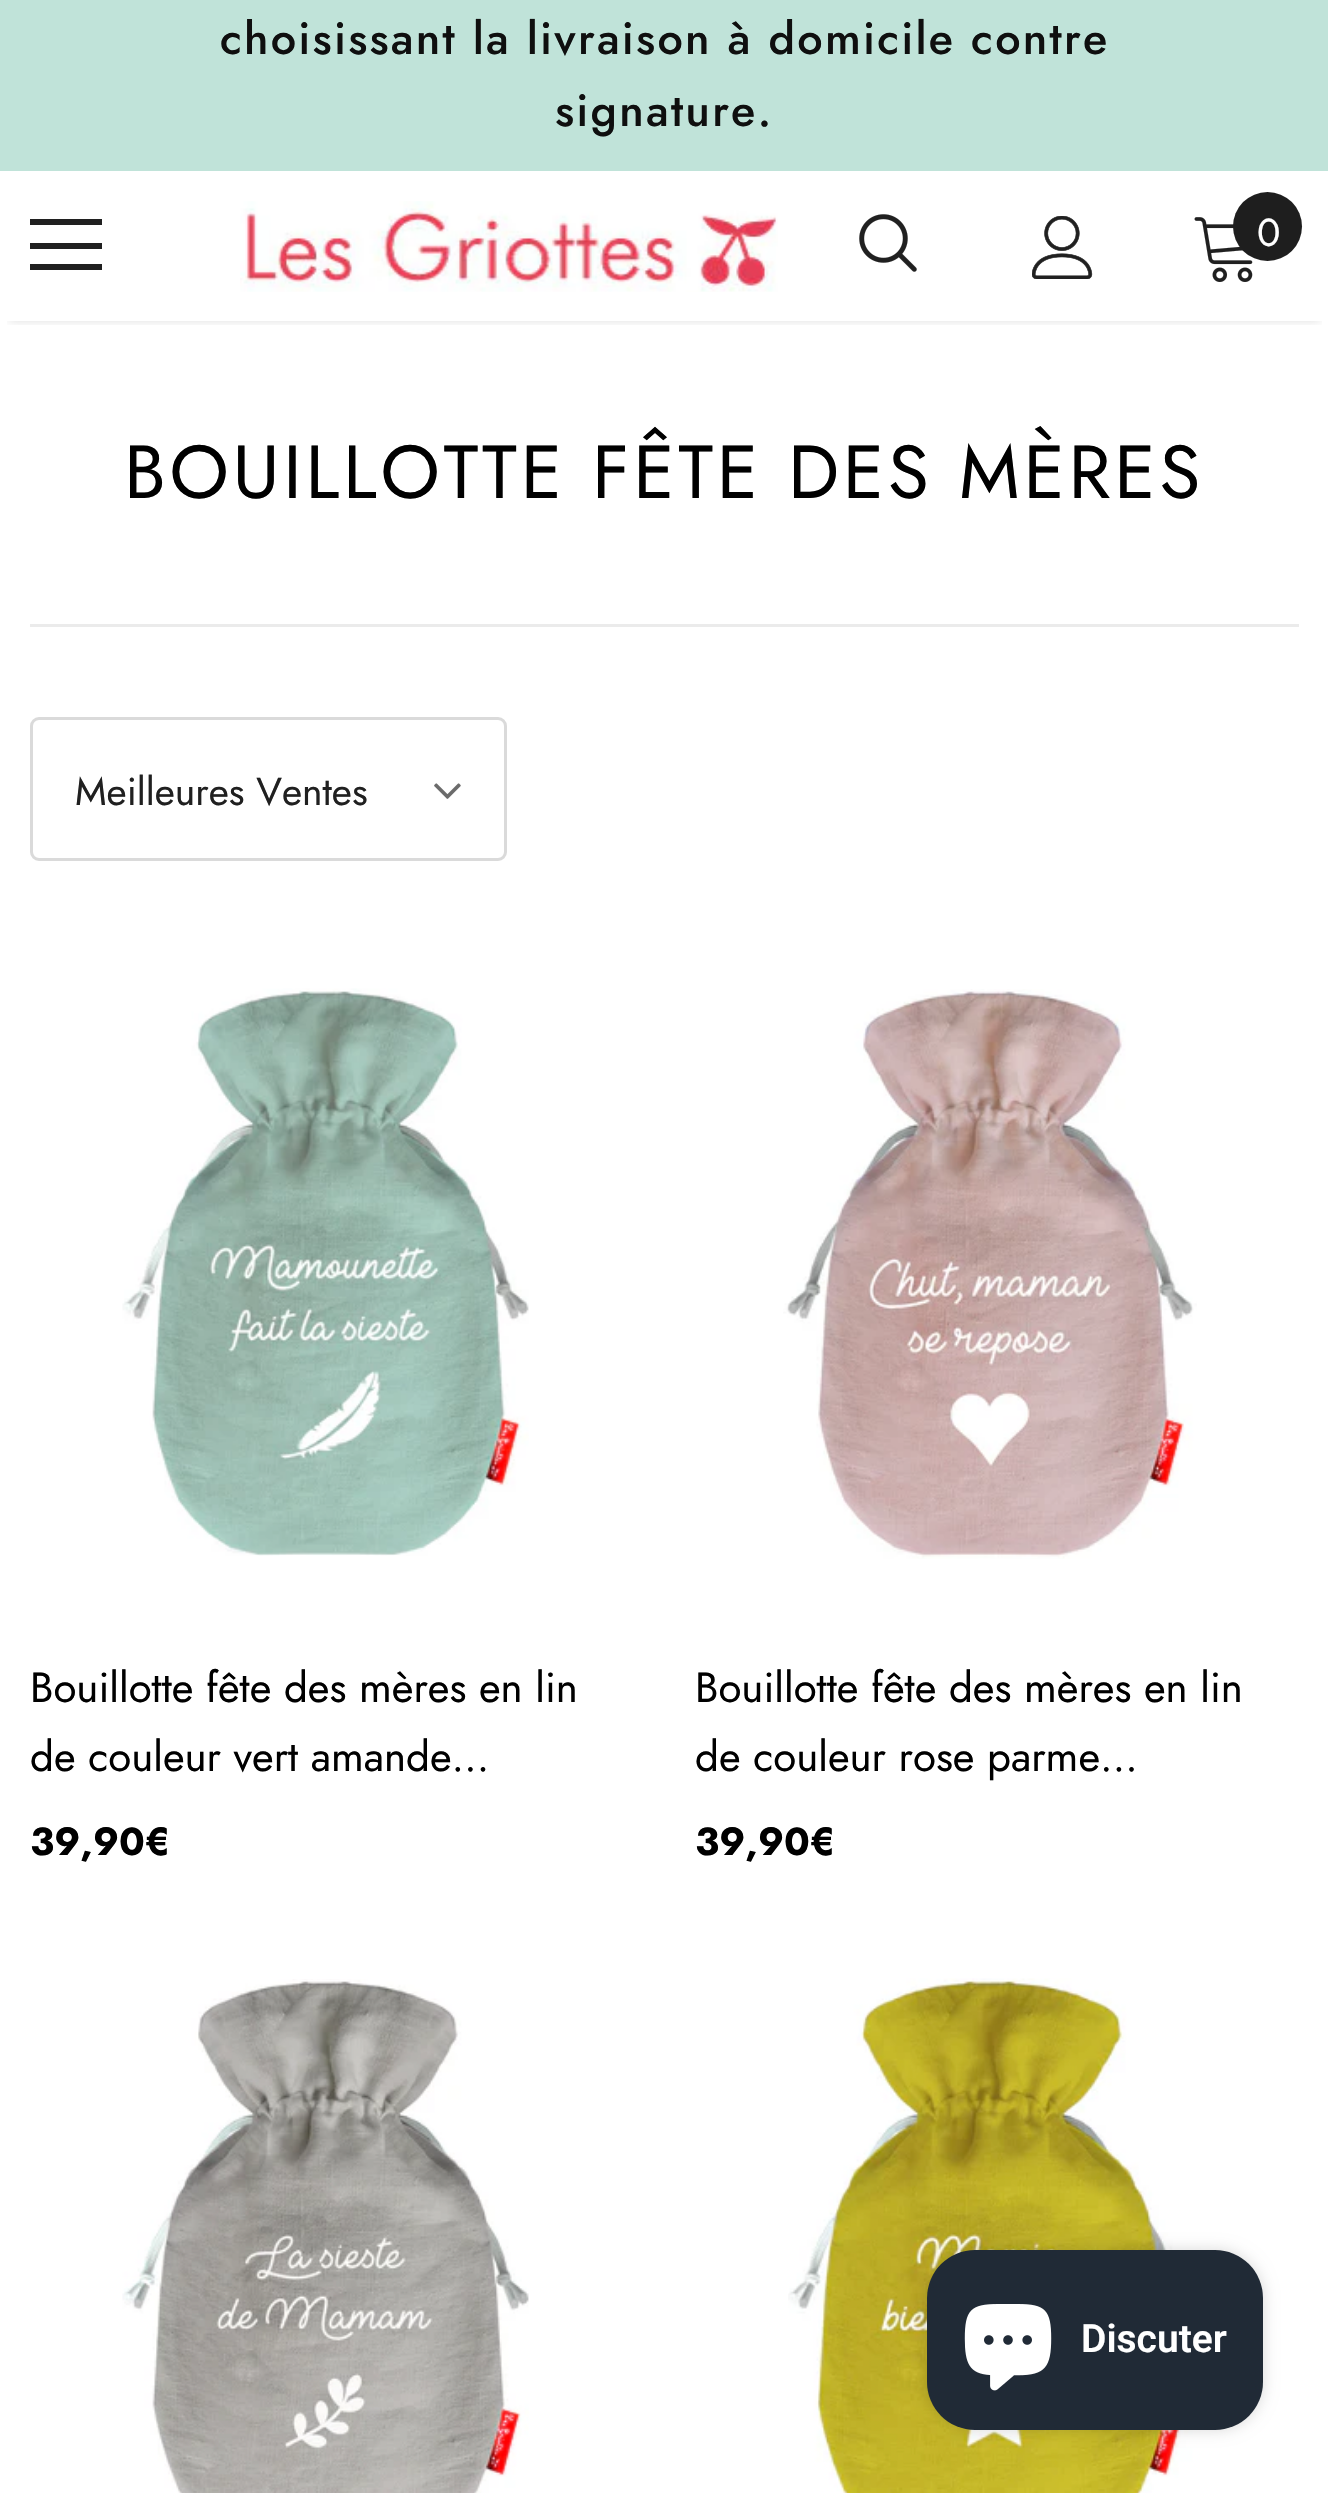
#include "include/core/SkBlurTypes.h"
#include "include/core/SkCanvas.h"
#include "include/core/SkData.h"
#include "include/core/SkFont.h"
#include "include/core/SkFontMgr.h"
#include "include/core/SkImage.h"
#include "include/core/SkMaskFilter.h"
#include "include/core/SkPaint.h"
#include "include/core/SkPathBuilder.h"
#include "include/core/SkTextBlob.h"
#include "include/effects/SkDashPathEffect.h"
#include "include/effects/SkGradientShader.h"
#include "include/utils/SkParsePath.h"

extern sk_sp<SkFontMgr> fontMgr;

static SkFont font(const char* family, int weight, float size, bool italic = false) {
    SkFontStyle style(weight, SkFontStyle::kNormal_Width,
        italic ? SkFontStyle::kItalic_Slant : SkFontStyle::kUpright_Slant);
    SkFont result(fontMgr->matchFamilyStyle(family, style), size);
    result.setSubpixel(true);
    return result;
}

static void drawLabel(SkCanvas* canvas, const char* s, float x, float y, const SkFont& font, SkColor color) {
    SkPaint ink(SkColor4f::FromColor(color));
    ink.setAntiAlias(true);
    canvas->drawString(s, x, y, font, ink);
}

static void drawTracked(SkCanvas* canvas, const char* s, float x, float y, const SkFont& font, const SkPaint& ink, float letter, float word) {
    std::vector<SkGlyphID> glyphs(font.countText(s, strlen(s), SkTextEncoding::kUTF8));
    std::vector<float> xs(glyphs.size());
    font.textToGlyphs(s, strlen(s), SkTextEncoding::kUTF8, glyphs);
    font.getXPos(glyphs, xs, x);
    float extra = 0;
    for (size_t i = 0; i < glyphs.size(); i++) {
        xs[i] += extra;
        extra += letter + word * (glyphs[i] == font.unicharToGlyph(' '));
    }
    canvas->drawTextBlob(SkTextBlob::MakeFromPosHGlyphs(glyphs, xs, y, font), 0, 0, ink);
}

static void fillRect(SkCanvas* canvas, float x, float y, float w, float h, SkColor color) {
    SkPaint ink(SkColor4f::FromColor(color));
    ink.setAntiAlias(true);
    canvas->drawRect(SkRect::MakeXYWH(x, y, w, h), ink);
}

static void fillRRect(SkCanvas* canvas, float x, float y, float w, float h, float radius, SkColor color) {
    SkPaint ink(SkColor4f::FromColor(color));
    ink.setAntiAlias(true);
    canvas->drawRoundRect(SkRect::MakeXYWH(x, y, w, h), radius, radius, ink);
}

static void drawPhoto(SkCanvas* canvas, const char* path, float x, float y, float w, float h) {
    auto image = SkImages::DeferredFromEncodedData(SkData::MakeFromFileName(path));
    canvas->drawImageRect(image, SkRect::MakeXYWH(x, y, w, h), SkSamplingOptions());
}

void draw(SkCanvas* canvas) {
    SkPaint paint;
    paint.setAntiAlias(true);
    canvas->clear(0xFFFFFFFF);
    fillRect(canvas, 0, 0, 1328, 171, 0xFFC0E3D9);
    SkFont font1 = font("Jost", 500, 45);
    paint.setColor(0xFF0F0F0F);
    drawTracked(canvas, "choisissant la livraison à domicile contre", 220, 54, font1, paint, 2.25f, 0);
    drawTracked(canvas, "signature.", 555, 126, font1, paint, 2.25f, 0);
    canvas->save();
    canvas->clipRect(SkRect::MakeXYWH(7, 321, 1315, 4));
    paint.setColor(0x1F000000);
    paint.setMaskFilter(SkMaskFilter::MakeBlur(kNormal_SkBlurStyle, 4.5f));
    canvas->drawRect(SkRect::MakeXYWH(9, 189, 1311, 132), paint);
    paint.setMaskFilter(nullptr);
    canvas->restore();
    fillRect(canvas, 30, 219, 72, 6, 0xFF202020);
    fillRect(canvas, 30, 243, 72, 6, 0xFF202020);
    fillRect(canvas, 30, 264, 72, 6, 0xFF202020);
    drawPhoto(canvas, "assets/img1.png", 240, 201, 538, 91);
    drawPhoto(canvas, "assets/img2.png", 859, 214, 58, 58);
    drawPhoto(canvas, "assets/img3.png", 1032, 216, 61, 63);
    drawPhoto(canvas, "assets/img4.png", 1194, 217, 59, 65);
    paint.setColor(0xFF1E1E1E);
    canvas->drawCircle(1267.5f, 226.5f, 34.5f, paint);
    SkFont font2 = font("Jost", 400, 39);
    drawLabel(canvas, "0", 1257, 246, font2, 0xFFFFFFFF);
    SkFont font3 = font("Jost", 400, 75);
    paint.setColor(0xFF000000);
    drawTracked(canvas, "BOUILLOTTE FÊTE DES MÈRES", 124, 498, font3, paint, 3.75f, 0);
    fillRect(canvas, 30, 624, 1269, 3, 0xFFEBEBEB);
    paint.setStroke(true);
    paint.setStrokeWidth(3);
    paint.setColor(0xFFDADADA);
    canvas->drawRoundRect(SkRect::MakeXYWH(31.5f, 718.5f, 474, 141), 7.5f, 7.5f, paint);
    drawLabel(canvas, "Meilleures Ventes", 75, 805, font2, 0xFF202020);
    drawPhoto(canvas, "assets/img5.png", 434, 783, 27, 16);
    drawPhoto(canvas, "assets/img6.png", 122, 988, 407, 568);
    SkFont font4 = font("Jost", 400, 42);
    drawLabel(canvas, "Bouillotte fête des mères en lin", 30, 1702, font4, 0xFF000000);
    drawLabel(canvas, "de couleur vert amande…", 30, 1771, font4, 0xFF000000);
    SkFont font5 = font("Jost", 700, 39);
    drawLabel(canvas, "39,90€", 30, 1855, font5, 0xFF000000);
    drawPhoto(canvas, "assets/img7.png", 783, 989, 414, 570);
    drawLabel(canvas, "Bouillotte fête des mères en lin", 695, 1702, font4, 0xFF000000);
    drawLabel(canvas, "de couleur rose parme…", 695, 1771, font4, 0xFF000000);
    drawLabel(canvas, "39,90€", 695, 1855, font5, 0xFF000000);
    drawPhoto(canvas, "assets/img8.png", 122, 1979, 407, 514);
    drawPhoto(canvas, "assets/img9.png", 788, 1978, 405, 515);
    paint.setStroke(false);
    paint.setColor(0x26000000);
    paint.setMaskFilter(SkMaskFilter::MakeBlur(kNormal_SkBlurStyle, 7.5f));
    canvas->drawRoundRect(SkRect::MakeXYWH(927, 2250, 336, 180), 48, 48, paint);
    paint.setMaskFilter(nullptr);
    fillRRect(canvas, 927, 2250, 336, 180, 48, 0xFF202A36);
    drawPhoto(canvas, "assets/img10.png", 964, 2304, 88, 87);
    SkFont font6 = font("Roboto", 600, 39);
    drawLabel(canvas, "Discuter", 1081, 2352, font6, 0xFFFFFFFF);
}
